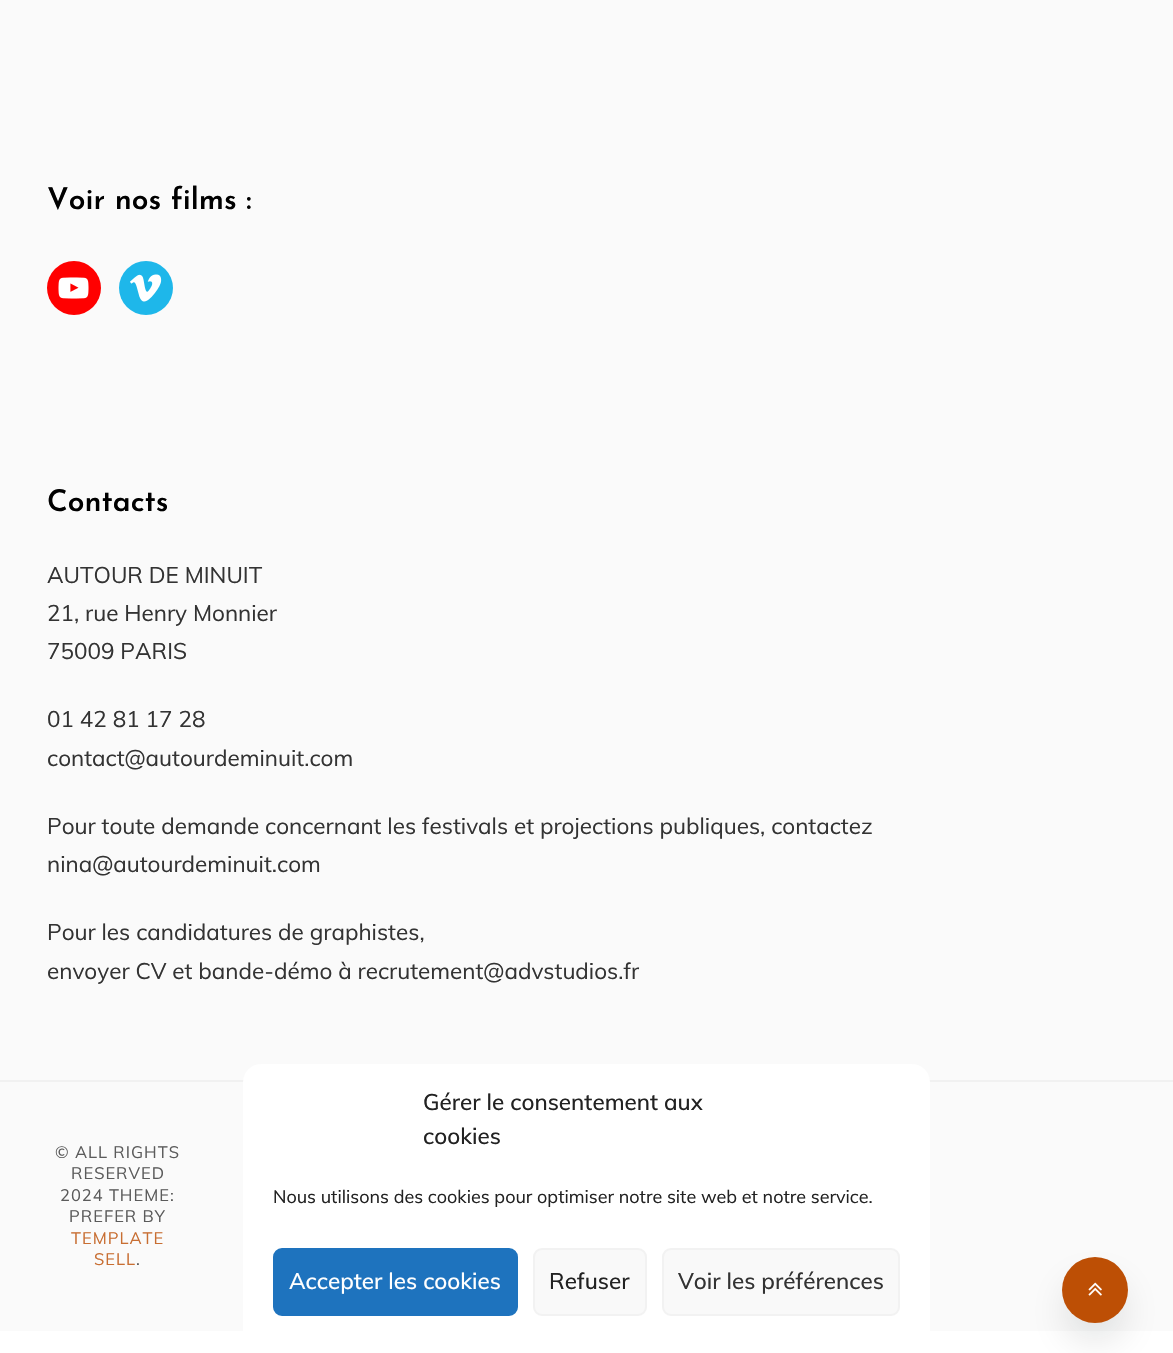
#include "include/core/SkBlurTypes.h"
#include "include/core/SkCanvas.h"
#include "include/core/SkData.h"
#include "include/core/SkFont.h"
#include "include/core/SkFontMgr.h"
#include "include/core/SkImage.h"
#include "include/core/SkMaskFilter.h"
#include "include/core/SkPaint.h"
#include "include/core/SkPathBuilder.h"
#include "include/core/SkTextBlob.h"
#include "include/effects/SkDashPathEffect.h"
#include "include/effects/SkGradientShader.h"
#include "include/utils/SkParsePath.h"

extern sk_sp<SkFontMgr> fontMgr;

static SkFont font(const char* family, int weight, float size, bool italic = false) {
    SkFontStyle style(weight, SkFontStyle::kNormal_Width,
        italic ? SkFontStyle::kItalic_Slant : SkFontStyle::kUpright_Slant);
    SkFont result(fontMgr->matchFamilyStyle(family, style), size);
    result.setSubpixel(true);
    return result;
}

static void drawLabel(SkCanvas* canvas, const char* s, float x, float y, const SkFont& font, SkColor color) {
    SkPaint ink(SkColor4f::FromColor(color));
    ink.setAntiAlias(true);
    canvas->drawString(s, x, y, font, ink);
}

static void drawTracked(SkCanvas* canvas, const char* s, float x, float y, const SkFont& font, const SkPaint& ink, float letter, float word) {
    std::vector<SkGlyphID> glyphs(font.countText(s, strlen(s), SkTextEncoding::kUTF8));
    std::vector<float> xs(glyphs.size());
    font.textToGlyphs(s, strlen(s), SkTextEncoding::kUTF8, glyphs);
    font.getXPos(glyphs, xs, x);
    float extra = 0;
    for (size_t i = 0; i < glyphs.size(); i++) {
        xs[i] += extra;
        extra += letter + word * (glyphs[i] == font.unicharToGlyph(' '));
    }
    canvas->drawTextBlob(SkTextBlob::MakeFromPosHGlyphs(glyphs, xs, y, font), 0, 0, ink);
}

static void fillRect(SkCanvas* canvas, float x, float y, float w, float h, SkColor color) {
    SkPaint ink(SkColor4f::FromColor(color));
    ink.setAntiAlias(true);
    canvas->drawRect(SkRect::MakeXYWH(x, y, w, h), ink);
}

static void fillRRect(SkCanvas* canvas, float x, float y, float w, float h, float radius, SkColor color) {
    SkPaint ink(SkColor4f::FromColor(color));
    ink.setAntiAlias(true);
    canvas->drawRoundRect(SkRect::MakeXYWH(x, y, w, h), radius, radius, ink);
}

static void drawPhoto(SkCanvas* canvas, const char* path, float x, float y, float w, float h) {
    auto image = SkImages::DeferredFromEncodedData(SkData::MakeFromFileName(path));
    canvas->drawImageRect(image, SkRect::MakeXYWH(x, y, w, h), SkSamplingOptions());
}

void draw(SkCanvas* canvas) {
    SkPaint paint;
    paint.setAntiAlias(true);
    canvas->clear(0xFFFFFFFF);
    fillRect(canvas, 0, 0, 1173, 1331, 0xFFFAFAFA);
    SkFont font1 = font("Josefin Sans", 600, 30);
    drawLabel(canvas, "Voir nos films :", 47, 209, font1, 0xFF000000);
    paint.setColor(0xFFFF0000);
    canvas->drawCircle(74, 288, 27, paint);
    drawPhoto(canvas, "assets/img1.png", 58, 277, 31, 22);
    paint.setColor(0xFF1EB7EA);
    canvas->drawCircle(146, 288, 27, paint);
    drawPhoto(canvas, "assets/img2.png", 130, 274, 32, 28);
    drawLabel(canvas, "Contacts", 47, 511, font1, 0xFF000000);
    SkFont font2 = font("Muli", 400, 22.5f);
    drawLabel(canvas, "AUTOUR DE MINUIT", 47, 583, font2, 0xFF333333);
    drawLabel(canvas, "21, rue Henry Monnier", 47, 621, font2, 0xFF333333);
    drawLabel(canvas, "75009 PARIS", 47, 659, font2, 0xFF333333);
    drawLabel(canvas, "01 42 81 17 28", 47, 727, font2, 0xFF333333);
    drawLabel(canvas, "contact@autourdeminuit.com", 47, 766, font2, 0xFF333333);
    drawLabel(canvas, "Pour toute demande concernant les festivals et projections publiques, contactez", 47, 834, font2, 0xFF333333);
    drawLabel(canvas, "nina@autourdeminuit.com", 47, 872, font2, 0xFF333333);
    drawLabel(canvas, "Pour les candidatures de graphistes,", 47, 940, font2, 0xFF333333);
    drawLabel(canvas, "envoyer CV et bande-démo à recrutement@advstudios.fr", 47, 979, font2, 0xFF333333);
    fillRect(canvas, 0, 1080, 1173, 2, 0xFFF1F1F1);
    SkFont font3 = font("Muli", 400, 16.5f);
    paint.setColor(0xFF5B5B5B);
    drawTracked(canvas, "© ALL RIGHTS", 55, 1158, font3, paint, 1, 0);
    drawTracked(canvas, "RESERVED", 71, 1179, font3, paint, 1, 0);
    drawTracked(canvas, "2024 THEME:", 60, 1201, font3, paint, 1, 0);
    drawTracked(canvas, "PREFER BY", 69, 1222, font3, paint, 1, 0);
    paint.setColor(0xFFC86E32);
    drawTracked(canvas, "TEMPLATE", 71, 1244, font3, paint, 1, 0);
    drawTracked(canvas, "SELL", 94, 1265, font3, paint, 1, 0);
    paint.setColor(0xFF5B5B5B);
    drawTracked(canvas, ".", 136, 1265, font3, paint, 1, 0);
    paint.setColor(0x260E1114);
    paint.setMaskFilter(SkMaskFilter::MakeBlur(kNormal_SkBlurStyle, 21));
    canvas->drawRoundRect(SkRect::MakeXYWH(1068, 1284, 54, 54), 27, 27, paint);
    paint.setMaskFilter(nullptr);
    paint.setColor(0xFFBD4F05);
    canvas->drawCircle(1095, 1290, 33, paint);
    drawPhoto(canvas, "assets/img3.png", 1088, 1282, 14, 14);
    fillRRect(canvas, 243, 1064, 687, 289, 18, 0xFFFFFFFF);
    SkFont font4 = font("Muli", 500, 22.5f);
    drawLabel(canvas, "Gérer le consentement aux", 423, 1110, font4, 0xFF222222);
    drawLabel(canvas, "cookies", 423, 1144, font4, 0xFF222222);
    SkFont font5 = font("Muli", 400, 18);
    drawLabel(canvas, "Nous utilisons des cookies pour optimiser notre site web et notre service.", 273, 1203, font5, 0xFF222222);
    paint.setColor(0xFF1E73BE);
    canvas->drawRoundRect(SkRect::MakeXYWH(274, 1249, 243, 66), 8, 8, paint);
    paint.setStroke(true);
    paint.setStrokeWidth(2);
    canvas->drawRoundRect(SkRect::MakeXYWH(274, 1249, 243, 66), 8, 8, paint);
    drawLabel(canvas, "Accepter les cookies", 289, 1289, font4, 0xFFFFFFFF);
    paint.setStroke(false);
    paint.setColor(0xFFF9F9F9);
    canvas->drawRoundRect(SkRect::MakeXYWH(534, 1249, 112, 66), 8, 8, paint);
    paint.setStroke(true);
    paint.setColor(0xFFF2F2F2);
    canvas->drawRoundRect(SkRect::MakeXYWH(534, 1249, 112, 66), 8, 8, paint);
    drawLabel(canvas, "Refuser", 549, 1289, font4, 0xFF222222);
    paint.setStroke(false);
    paint.setColor(0xFFF9F9F9);
    canvas->drawRoundRect(SkRect::MakeXYWH(663, 1249, 236, 66), 8, 8, paint);
    paint.setStroke(true);
    paint.setColor(0xFFF2F2F2);
    canvas->drawRoundRect(SkRect::MakeXYWH(663, 1249, 236, 66), 8, 8, paint);
    drawLabel(canvas, "Voir les préférences", 678, 1289, font4, 0xFF333333);
}
